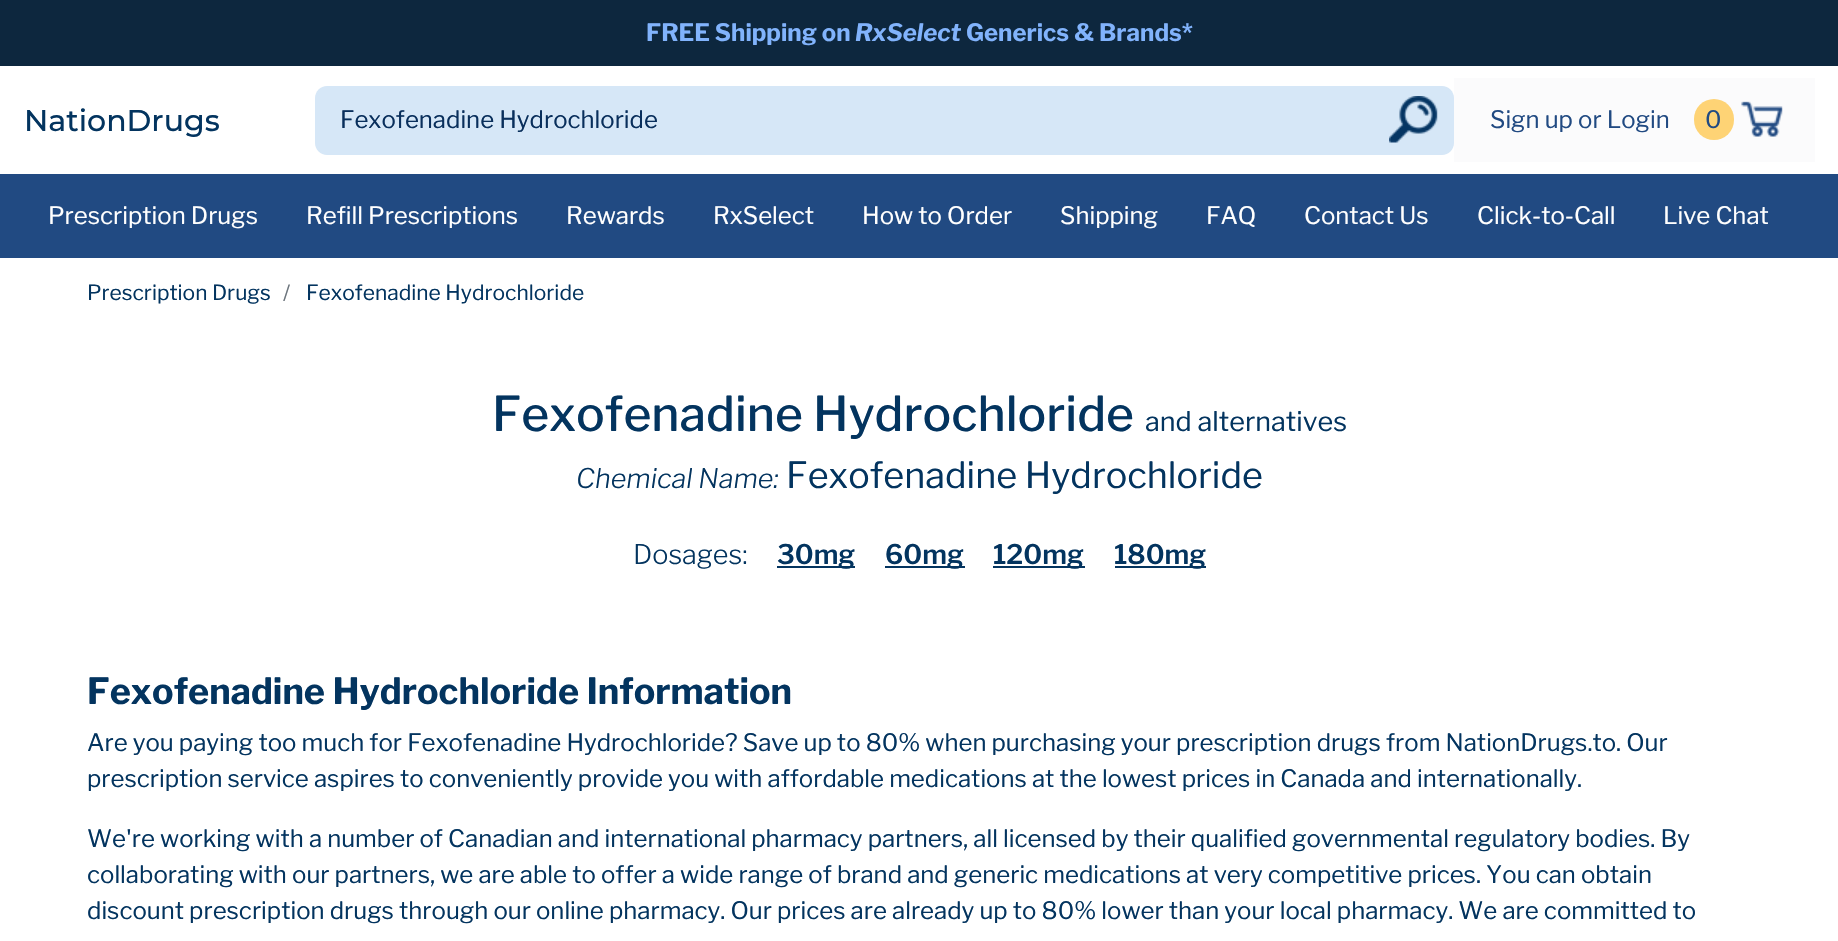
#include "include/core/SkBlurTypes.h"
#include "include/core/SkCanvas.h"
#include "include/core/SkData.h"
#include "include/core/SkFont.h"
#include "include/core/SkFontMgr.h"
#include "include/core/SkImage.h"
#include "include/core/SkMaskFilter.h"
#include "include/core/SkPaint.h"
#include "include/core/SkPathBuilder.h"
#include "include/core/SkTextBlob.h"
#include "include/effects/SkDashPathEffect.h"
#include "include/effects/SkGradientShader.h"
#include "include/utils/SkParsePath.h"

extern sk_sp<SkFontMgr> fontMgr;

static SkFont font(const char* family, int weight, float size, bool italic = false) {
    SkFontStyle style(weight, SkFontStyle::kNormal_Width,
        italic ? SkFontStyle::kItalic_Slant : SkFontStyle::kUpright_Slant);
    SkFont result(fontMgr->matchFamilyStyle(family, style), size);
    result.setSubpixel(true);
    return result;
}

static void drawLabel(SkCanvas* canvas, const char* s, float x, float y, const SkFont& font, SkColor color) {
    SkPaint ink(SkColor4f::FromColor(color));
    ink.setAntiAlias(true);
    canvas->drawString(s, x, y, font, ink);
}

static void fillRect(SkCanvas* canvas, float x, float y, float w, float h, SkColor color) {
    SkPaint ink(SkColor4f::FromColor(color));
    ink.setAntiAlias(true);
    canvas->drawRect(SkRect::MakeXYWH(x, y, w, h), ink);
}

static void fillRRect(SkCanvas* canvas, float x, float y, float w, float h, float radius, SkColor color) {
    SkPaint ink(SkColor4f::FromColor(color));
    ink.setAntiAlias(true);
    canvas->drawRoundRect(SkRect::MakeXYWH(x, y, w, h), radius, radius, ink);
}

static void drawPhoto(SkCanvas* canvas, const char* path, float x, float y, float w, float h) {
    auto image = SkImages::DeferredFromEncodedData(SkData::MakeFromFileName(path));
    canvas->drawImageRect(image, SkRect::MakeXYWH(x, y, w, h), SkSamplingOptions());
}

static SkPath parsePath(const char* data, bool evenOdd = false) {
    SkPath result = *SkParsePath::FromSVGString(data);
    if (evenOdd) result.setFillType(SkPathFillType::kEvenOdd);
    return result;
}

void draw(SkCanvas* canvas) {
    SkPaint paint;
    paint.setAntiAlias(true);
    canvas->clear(0xFFFFFFFF);
    fillRect(canvas, 0, 0, 1838, 66, 0xFF0D273E);
    SkFont font1 = font("Libre Franklin", 700, 24);
    drawLabel(canvas, "FREE Shipping on", 646, 41, font1, 0xFF81B3FC);
    SkFont font2 = font("Libre Franklin", 700, 24, true);
    drawLabel(canvas, "RxSelect", 855, 41, font2, 0xFF81B3FC);
    drawLabel(canvas, "Generics & Brands*", 966, 41, font1, 0xFF81B3FC);
    SkFont font3 = font("Montserrat", 500, 30);
    drawLabel(canvas, "NationDrugs", 24, 131, font3, 0xFF03345F);
    paint.setColor(0xFFD6E7F7);
    canvas->drawPath(parsePath("M327 86H1383V155H327C320.5 155 315 149.5 315 143V98C315 91.5 320.5 86 327 86Z"), paint);
    SkFont font4 = font("Libre Franklin", 400, 24);
    drawLabel(canvas, "Fexofenadine Hydrochloride", 340, 128, font4, 0xFF092F5C);
    canvas->drawPath(parsePath("M1382 86H1442C1448.5 86 1454 91.5 1454 98V143C1454 149.5 1448.5 155 1442 155H1382Z"), paint);
    drawPhoto(canvas, "assets/img1.png", 1389, 96, 49, 47);
    fillRect(canvas, 1454, 78, 361, 84, 0xFFFBFBFC);
    drawLabel(canvas, "Sign up or Login", 1490, 128, font4, 0xFF214A82);
    fillRRect(canvas, 1694, 99, 40, 41, 20, 0xFFFED375);
    drawLabel(canvas, "0", 1705, 128, font4, 0xFF214A82);
    drawPhoto(canvas, "assets/img2.png", 1741, 101, 42, 36);
    fillRect(canvas, 0, 174, 1838, 84, 0xFF214A82);
    drawLabel(canvas, "Prescription Drugs", 48, 224, font4, 0xFFFFFFFF);
    drawLabel(canvas, "Refill Prescriptions", 306, 224, font4, 0xFFFFFFFF);
    drawLabel(canvas, "Rewards", 566, 224, font4, 0xFFFFFFFF);
    drawLabel(canvas, "RxSelect", 713, 224, font4, 0xFFFFFFFF);
    drawLabel(canvas, "How to Order", 862, 224, font4, 0xFFFFFFFF);
    drawLabel(canvas, "Shipping", 1060, 224, font4, 0xFFFFFFFF);
    drawLabel(canvas, "FAQ", 1206, 224, font4, 0xFFFFFFFF);
    drawLabel(canvas, "Contact Us", 1304, 224, font4, 0xFFFFFFFF);
    drawLabel(canvas, "Click-to-Call", 1477, 224, font4, 0xFFFFFFFF);
    drawLabel(canvas, "Live Chat", 1663, 224, font4, 0xFFFFFFFF);
    SkFont font5 = font("Libre Franklin", 400, 21);
    drawLabel(canvas, "Prescription Drugs", 87, 300, font5, 0xFF03345F);
    drawLabel(canvas, "/", 283, 300, font5, 0xFF6C757D);
    drawLabel(canvas, "Fexofenadine Hydrochloride", 306, 300, font5, 0xFF03345F);
    SkFont font6 = font("Libre Franklin", 500, 48);
    drawLabel(canvas, "Fexofenadine Hydrochloride", 492, 431, font6, 0xFF03345F);
    SkFont font7 = font("Libre Franklin", 400, 27);
    drawLabel(canvas, "and alternatives", 1145, 431, font7, 0xFF03345F);
    SkFont font8 = font("Libre Franklin", 300, 27, true);
    drawLabel(canvas, "Chemical Name:", 576, 488, font8, 0xFF03345F);
    SkFont font9 = font("Libre Franklin", 400, 36);
    drawLabel(canvas, "Fexofenadine Hydrochloride", 786, 488, font9, 0xFF03345F);
    SkFont font10 = font("Libre Franklin", 300, 27);
    drawLabel(canvas, "Dosages:", 633, 564, font10, 0xFF03345F);
    fillRect(canvas, 777, 566, 78, 2, 0xFF03345F);
    SkFont font11 = font("Libre Franklin", 600, 27);
    drawLabel(canvas, "30mg", 777, 564, font11, 0xFF03345F);
    fillRect(canvas, 885, 566, 80, 2, 0xFF03345F);
    drawLabel(canvas, "60mg", 885, 564, font11, 0xFF03345F);
    fillRect(canvas, 993, 566, 92, 2, 0xFF03345F);
    drawLabel(canvas, "120mg", 993, 564, font11, 0xFF03345F);
    fillRect(canvas, 1115, 566, 91, 2, 0xFF03345F);
    drawLabel(canvas, "180mg", 1114, 564, font11, 0xFF03345F);
    SkFont font12 = font("Libre Franklin", 700, 36);
    drawLabel(canvas, "Fexofenadine Hydrochloride Information", 87, 704, font12, 0xFF03345F);
    drawLabel(canvas, "Are you paying too much for Fexofenadine Hydrochloride? Save up to 80% when purchasing your prescription drugs from NationDrugs.to. Our", 87, 751, font4, 0xFF03345F);
    drawLabel(canvas, "prescription service aspires to conveniently provide you with affordable medications at the lowest prices in Canada and internationally.", 87, 787, font4, 0xFF03345F);
    drawLabel(canvas, "We're working with a number of Canadian and international pharmacy partners, all licensed by their qualified governmental regulatory bodies. By", 87, 847, font4, 0xFF03345F);
    drawLabel(canvas, "collaborating with our partners, we are able to offer a wide range of brand and generic medications at very competitive prices. You can obtain", 87, 883, font4, 0xFF03345F);
    drawLabel(canvas, "discount prescription drugs through our online pharmacy. Our prices are already up to 80% lower than your local pharmacy. We are committed to", 87, 919, font4, 0xFF03345F);
}
